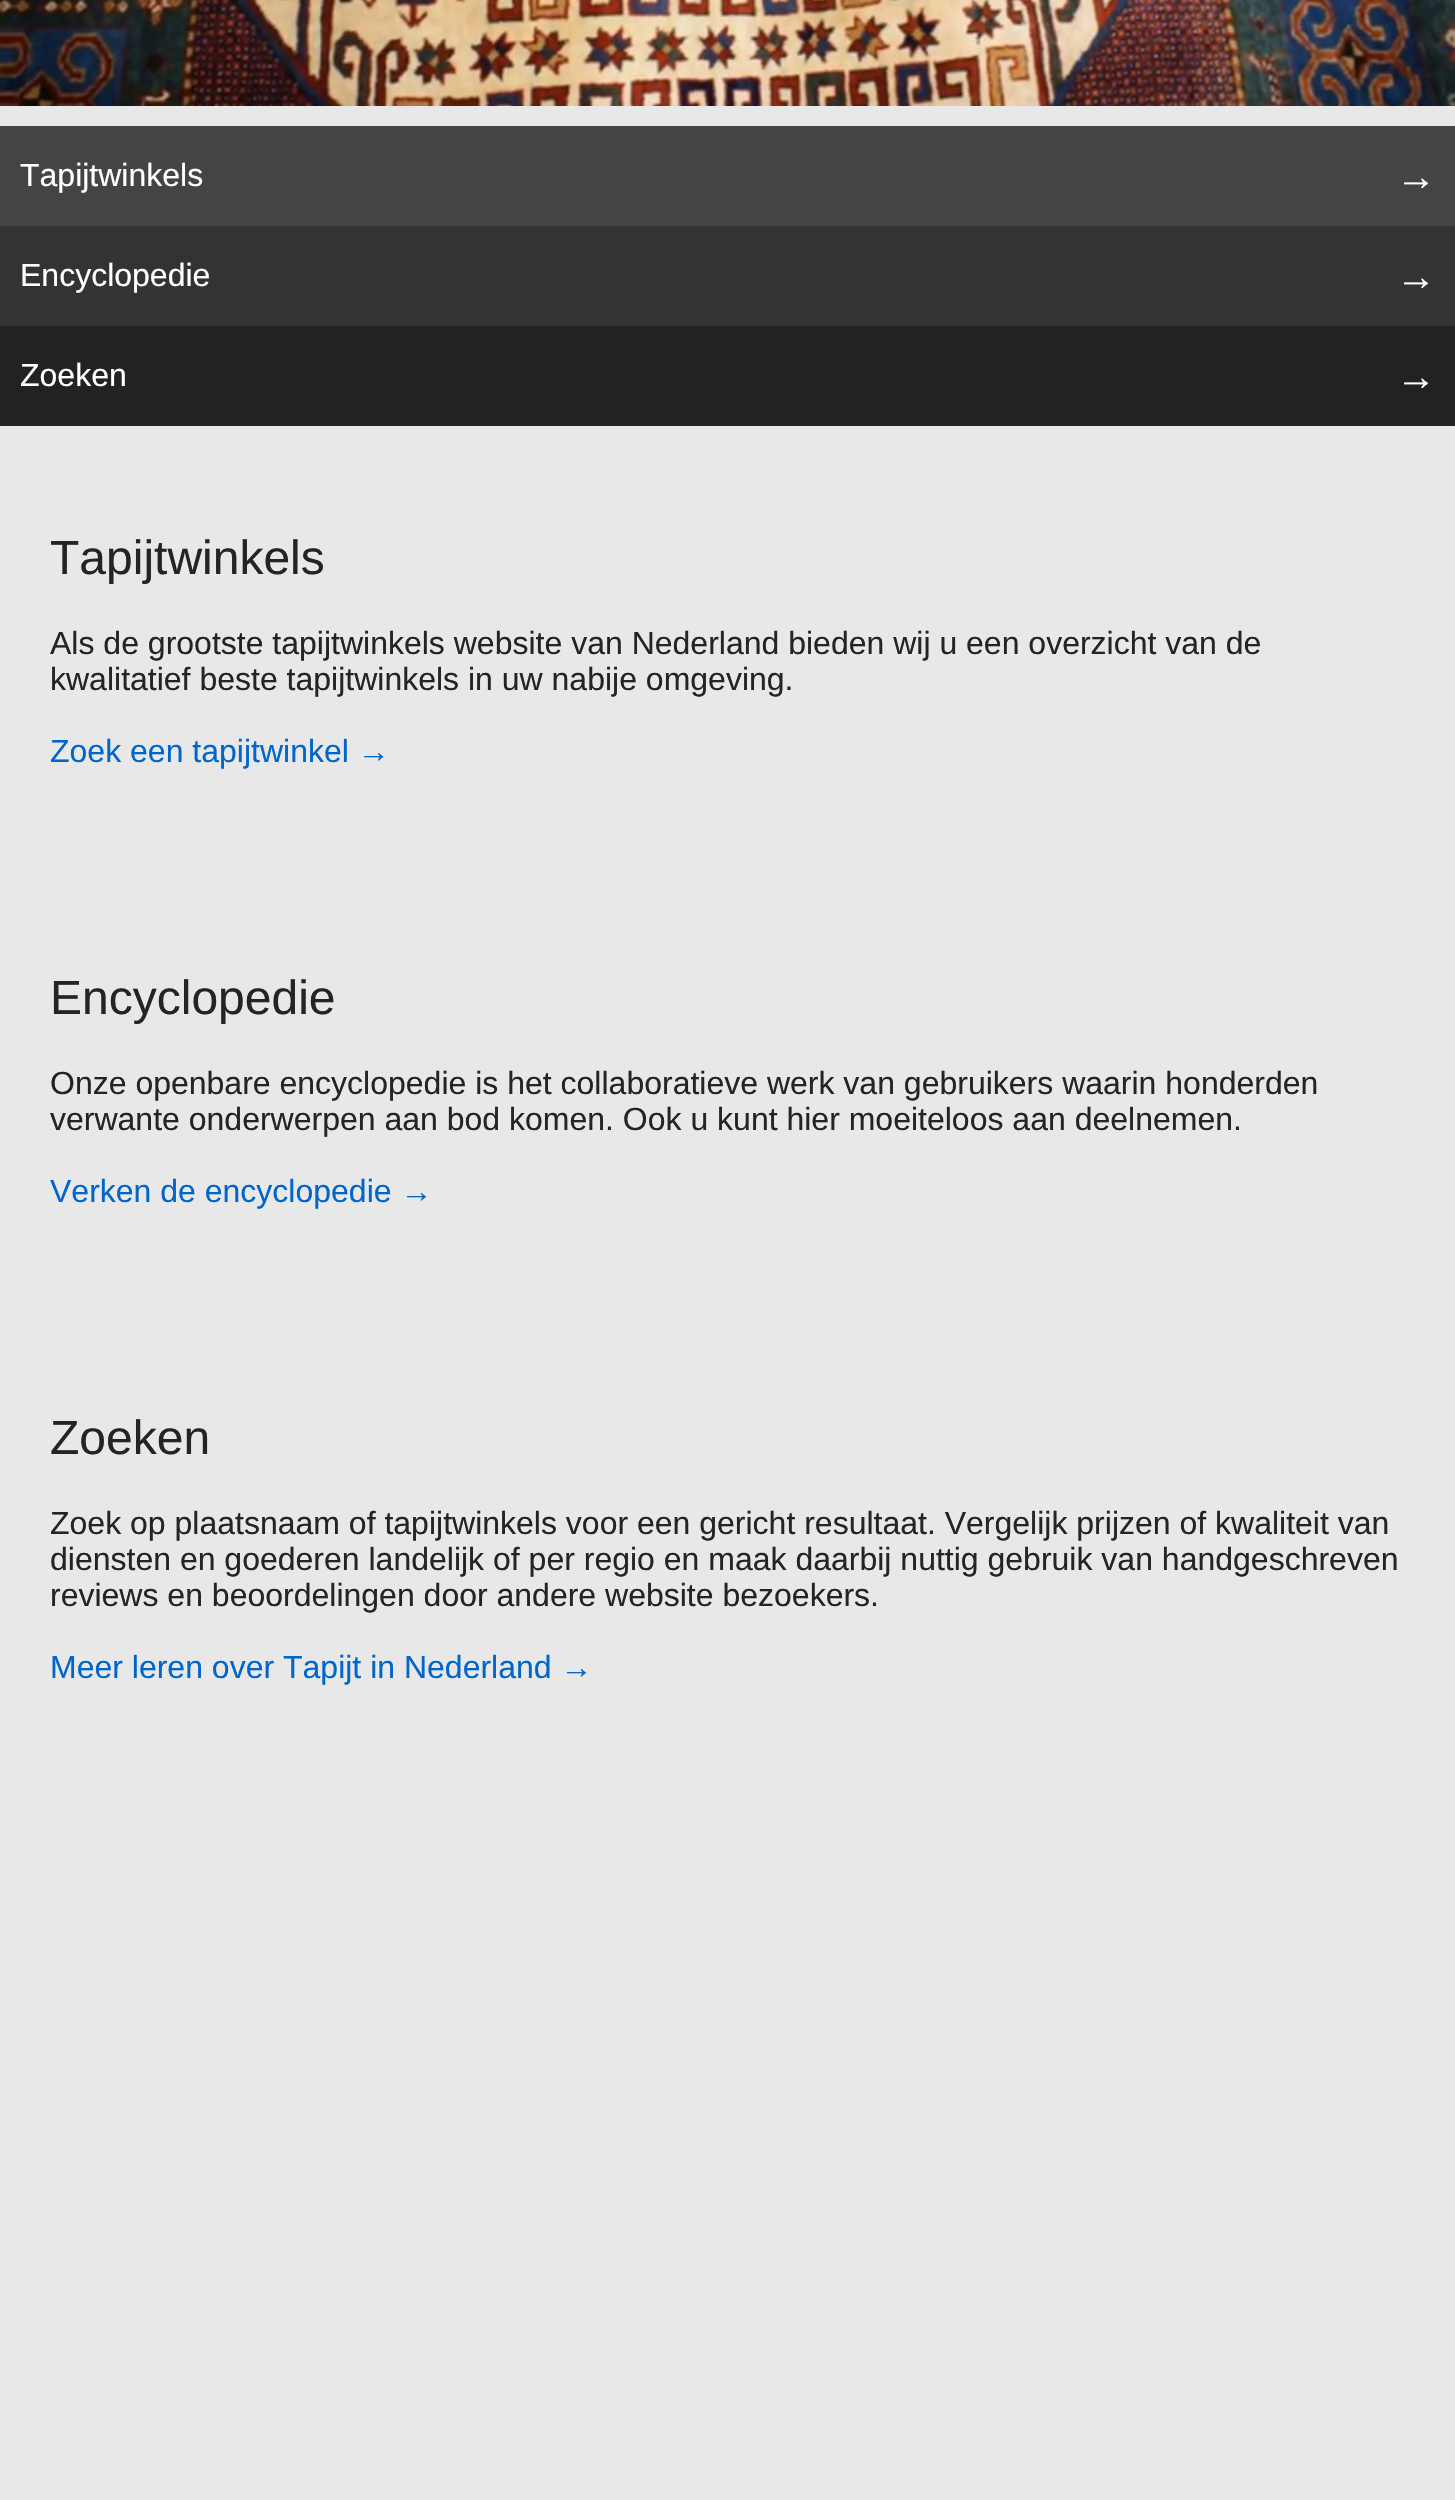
#include "include/core/SkBlurTypes.h"
#include "include/core/SkCanvas.h"
#include "include/core/SkData.h"
#include "include/core/SkFont.h"
#include "include/core/SkFontMgr.h"
#include "include/core/SkImage.h"
#include "include/core/SkMaskFilter.h"
#include "include/core/SkPaint.h"
#include "include/core/SkPathBuilder.h"
#include "include/core/SkTextBlob.h"
#include "include/effects/SkDashPathEffect.h"
#include "include/effects/SkGradientShader.h"
#include "include/utils/SkParsePath.h"

extern sk_sp<SkFontMgr> fontMgr;

static SkFont font(const char* family, int weight, float size, bool italic = false) {
    SkFontStyle style(weight, SkFontStyle::kNormal_Width,
        italic ? SkFontStyle::kItalic_Slant : SkFontStyle::kUpright_Slant);
    SkFont result(fontMgr->matchFamilyStyle(family, style), size);
    result.setSubpixel(true);
    return result;
}

static void drawLabel(SkCanvas* canvas, const char* s, float x, float y, const SkFont& font, SkColor color) {
    SkPaint ink(SkColor4f::FromColor(color));
    ink.setAntiAlias(true);
    canvas->drawString(s, x, y, font, ink);
}

static void fillRect(SkCanvas* canvas, float x, float y, float w, float h, SkColor color) {
    SkPaint ink(SkColor4f::FromColor(color));
    ink.setAntiAlias(true);
    canvas->drawRect(SkRect::MakeXYWH(x, y, w, h), ink);
}

static void drawPhoto(SkCanvas* canvas, const char* path, float x, float y, float w, float h) {
    auto image = SkImages::DeferredFromEncodedData(SkData::MakeFromFileName(path));
    canvas->drawImageRect(image, SkRect::MakeXYWH(x, y, w, h), SkSamplingOptions());
}

void draw(SkCanvas* canvas) {
    SkPaint paint;
    paint.setAntiAlias(true);
    canvas->clear(0xFFE8E8E8);
    drawPhoto(canvas, "assets/img1.png", 0, 0, 1455, 106);
    fillRect(canvas, 0, 126, 1455, 100, 0xFF444444);
    SkFont font1 = font("Liberation Sans", 400, 32);
    drawLabel(canvas, "Tapijtwinkels", 20, 186, font1, 0xFFFFFFFF);
    SkFont font2 = font("Liberation Sans", 400, 40);
    drawLabel(canvas, "→", 1396, 190, font2, 0xFFFFFFFF);
    fillRect(canvas, 0, 226, 1455, 100, 0xFF333333);
    drawLabel(canvas, "Encyclopedie", 20, 286, font1, 0xFFFFFFFF);
    drawLabel(canvas, "→", 1396, 290, font2, 0xFFFFFFFF);
    fillRect(canvas, 0, 326, 1455, 100, 0xFF222222);
    drawLabel(canvas, "Zoeken", 20, 386, font1, 0xFFFFFFFF);
    drawLabel(canvas, "→", 1396, 390, font2, 0xFFFFFFFF);
    SkFont font3 = font("Liberation Sans", 400, 48);
    drawLabel(canvas, "Tapijtwinkels", 50, 574, font3, 0xFF242424);
    drawLabel(canvas, "Als de grootste tapijtwinkels website van Nederland bieden wij u een overzicht van de", 50, 654, font1, 0xFF242424);
    drawLabel(canvas, "kwalitatief beste tapijtwinkels in uw nabije omgeving.", 50, 690, font1, 0xFF242424);
    drawLabel(canvas, "Zoek een tapijtwinkel →", 50, 762, font1, 0xFF0066CC);
    drawLabel(canvas, "Encyclopedie", 50, 1014, font3, 0xFF242424);
    drawLabel(canvas, "Onze openbare encyclopedie is het collaboratieve werk van gebruikers waarin honderden", 50, 1094, font1, 0xFF242424);
    drawLabel(canvas, "verwante onderwerpen aan bod komen. Ook u kunt hier moeiteloos aan deelnemen.", 50, 1130, font1, 0xFF242424);
    drawLabel(canvas, "Verken de encyclopedie →", 50, 1202, font1, 0xFF0066CC);
    drawLabel(canvas, "Zoeken", 50, 1454, font3, 0xFF242424);
    drawLabel(canvas, "Zoek op plaatsnaam of tapijtwinkels voor een gericht resultaat. Vergelijk prijzen of kwaliteit van", 50, 1534, font1, 0xFF242424);
    drawLabel(canvas, "diensten en goederen landelijk of per regio en maak daarbij nuttig gebruik van handgeschreven", 50, 1570, font1, 0xFF242424);
    drawLabel(canvas, "reviews en beoordelingen door andere website bezoekers.", 50, 1606, font1, 0xFF242424);
    drawLabel(canvas, "Meer leren over Tapijt in Nederland →", 50, 1678, font1, 0xFF0066CC);
}
